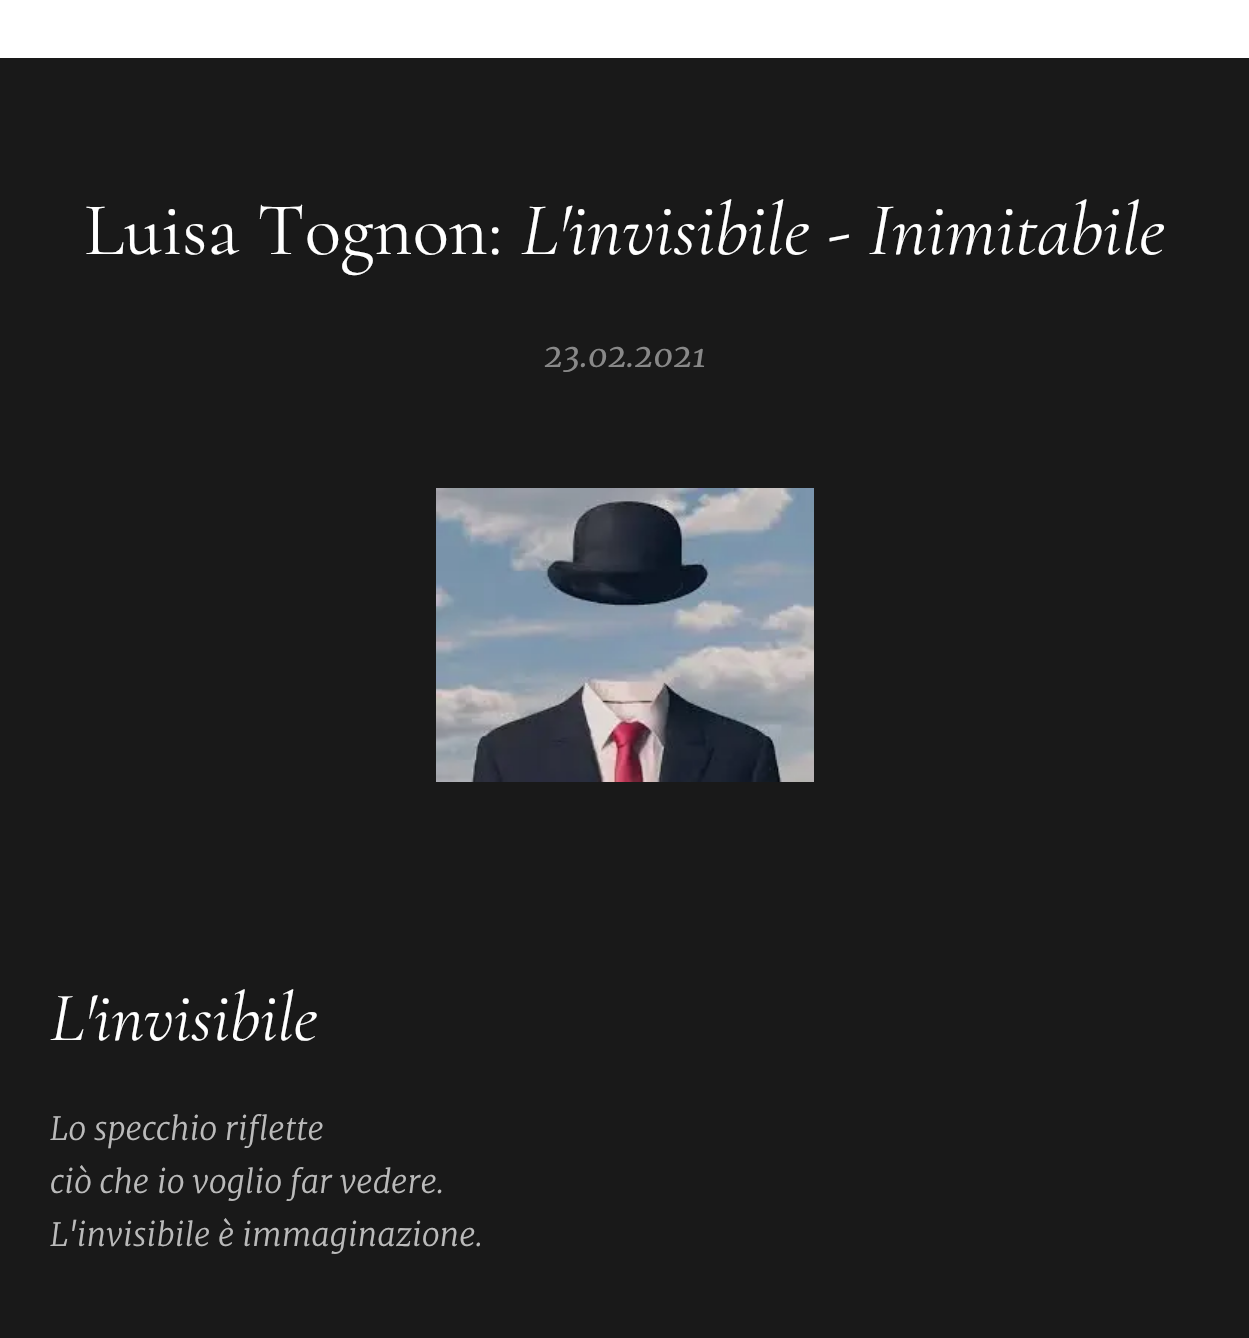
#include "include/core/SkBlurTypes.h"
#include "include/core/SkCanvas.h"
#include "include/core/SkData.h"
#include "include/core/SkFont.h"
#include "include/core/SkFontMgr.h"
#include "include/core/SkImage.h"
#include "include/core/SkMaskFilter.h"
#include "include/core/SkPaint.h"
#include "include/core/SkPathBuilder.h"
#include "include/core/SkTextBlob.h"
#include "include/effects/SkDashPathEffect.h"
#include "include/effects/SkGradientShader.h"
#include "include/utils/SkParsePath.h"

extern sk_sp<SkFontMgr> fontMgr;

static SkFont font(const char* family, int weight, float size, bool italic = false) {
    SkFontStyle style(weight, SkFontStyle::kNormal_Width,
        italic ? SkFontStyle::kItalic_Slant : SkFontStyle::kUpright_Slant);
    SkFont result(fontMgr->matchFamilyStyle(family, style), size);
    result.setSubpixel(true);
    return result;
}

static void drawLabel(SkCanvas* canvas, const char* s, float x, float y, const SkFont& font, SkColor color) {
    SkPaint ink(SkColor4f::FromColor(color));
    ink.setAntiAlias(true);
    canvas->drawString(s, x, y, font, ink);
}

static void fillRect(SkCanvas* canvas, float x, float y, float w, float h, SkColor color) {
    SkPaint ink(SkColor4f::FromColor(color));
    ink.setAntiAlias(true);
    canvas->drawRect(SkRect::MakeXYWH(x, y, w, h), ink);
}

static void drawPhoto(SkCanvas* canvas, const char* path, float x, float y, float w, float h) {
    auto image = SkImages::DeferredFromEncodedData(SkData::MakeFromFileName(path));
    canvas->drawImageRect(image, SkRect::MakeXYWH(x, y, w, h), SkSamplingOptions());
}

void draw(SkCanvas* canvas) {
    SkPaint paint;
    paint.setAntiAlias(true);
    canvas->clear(0xFFFFFFFF);
    fillRect(canvas, 0, 58, 1249, 1280, 0xFF191919);
    SkFont font1 = font("Cormorant", 400, 75.5f);
    drawLabel(canvas, "Luisa Tognon:", 84, 254, font1, 0xFFFFFFFF);
    SkFont font2 = font("Cormorant", 400, 75.5f, true);
    drawLabel(canvas, "L'invisibile - Inimitabile", 521, 254, font2, 0xFFFFFFFF);
    SkFont font3 = font("Merriweather", 400, 32, true);
    drawLabel(canvas, "23.02.2021", 544, 367, font3, 0xFF888888);
    drawPhoto(canvas, "assets/img1.png", 436, 488, 378, 294);
    SkFont font4 = font("Cormorant", 400, 70, true);
    drawLabel(canvas, "L'invisibile", 50, 1040, font4, 0xFFFFFFFF);
    SkFont font5 = font("Merriweather", 300, 32, true);
    drawLabel(canvas, "Lo specchio riflette", 50, 1140, font5, 0xFFBABABA);
    drawLabel(canvas, "ciò che io voglio far vedere.", 50, 1193, font5, 0xFFBABABA);
    drawLabel(canvas, "L'invisibile è immaginazione.", 50, 1246, font5, 0xFFBABABA);
}
